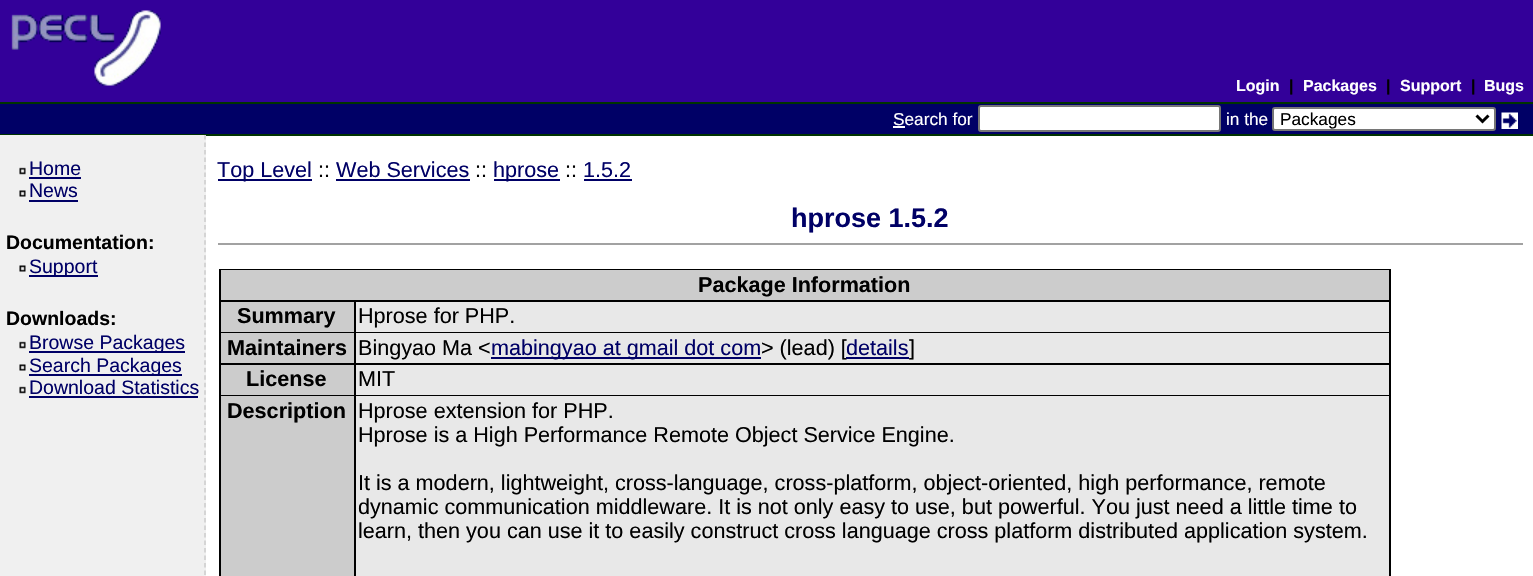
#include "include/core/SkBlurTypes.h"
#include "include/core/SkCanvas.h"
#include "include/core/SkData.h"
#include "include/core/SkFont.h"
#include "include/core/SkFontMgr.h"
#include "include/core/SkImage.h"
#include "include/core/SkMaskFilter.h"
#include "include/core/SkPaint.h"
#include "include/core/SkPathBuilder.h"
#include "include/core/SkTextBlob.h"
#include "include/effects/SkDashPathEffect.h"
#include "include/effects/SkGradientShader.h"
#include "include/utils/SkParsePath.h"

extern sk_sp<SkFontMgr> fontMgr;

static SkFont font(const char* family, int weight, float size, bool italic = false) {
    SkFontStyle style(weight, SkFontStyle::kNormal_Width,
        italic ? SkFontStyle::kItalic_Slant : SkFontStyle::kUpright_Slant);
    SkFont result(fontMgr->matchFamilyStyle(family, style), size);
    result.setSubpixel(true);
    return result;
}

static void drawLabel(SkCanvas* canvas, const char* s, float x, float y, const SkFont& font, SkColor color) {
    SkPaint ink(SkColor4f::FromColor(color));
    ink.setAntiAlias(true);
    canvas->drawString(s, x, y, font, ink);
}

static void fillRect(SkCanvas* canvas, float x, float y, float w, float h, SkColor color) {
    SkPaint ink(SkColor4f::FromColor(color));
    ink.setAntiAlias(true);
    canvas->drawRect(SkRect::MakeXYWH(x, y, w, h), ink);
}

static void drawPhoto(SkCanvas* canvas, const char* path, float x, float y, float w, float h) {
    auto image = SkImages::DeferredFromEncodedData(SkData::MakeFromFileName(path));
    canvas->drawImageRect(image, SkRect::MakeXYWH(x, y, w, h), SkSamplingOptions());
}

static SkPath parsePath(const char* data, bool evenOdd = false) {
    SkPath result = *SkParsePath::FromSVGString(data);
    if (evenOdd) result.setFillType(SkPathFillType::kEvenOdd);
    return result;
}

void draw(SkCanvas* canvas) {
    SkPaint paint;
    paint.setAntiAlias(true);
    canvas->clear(0xFFFFFFFF);
    fillRect(canvas, 0, 0, 1533, 102, 0xFF330099);
    drawPhoto(canvas, "assets/img1.png", 11, 10, 150, 76);
    SkFont font1 = font("Liberation Sans", 700, 16);
    drawLabel(canvas, "Login", 1236, 91, font1, 0xFFFFFFFF);
    drawLabel(canvas, "|", 1289, 91, font1, 0xFF000000);
    drawLabel(canvas, "Packages", 1303, 91, font1, 0xFFFFFFFF);
    drawLabel(canvas, "|", 1386, 91, font1, 0xFF000000);
    drawLabel(canvas, "Support", 1400, 91, font1, 0xFFFFFFFF);
    drawLabel(canvas, "|", 1471, 91, font1, 0xFF000000);
    drawLabel(canvas, "Bugs", 1484, 91, font1, 0xFFFFFFFF);
    fillRect(canvas, 0, 104, 1533, 30, 0xFF000066);
    fillRect(canvas, 0, 102, 1533, 2, 0xFF003300);
    fillRect(canvas, 0, 134, 1533, 2, 0xFF003300);
    SkFont font2 = font("Liberation Sans", 400, 17.25f);
    drawLabel(canvas, "Search for", 893, 125, font2, 0xFFFFFFFF);
    fillRect(canvas, 893, 126, 12, 2, 0xFFFFFFFF);
    paint.setColor(0xFFFFFFFF);
    canvas->drawRoundRect(SkRect::MakeXYWH(979, 106, 241, 25), 2, 2, paint);
    paint.setStroke(true);
    paint.setStrokeWidth(2);
    paint.setColor(0xFF767676);
    canvas->drawRoundRect(SkRect::MakeXYWH(979, 106, 241, 25), 2, 2, paint);
    drawLabel(canvas, "in the", 1226, 125, font2, 0xFFFFFFFF);
    paint.setStroke(false);
    paint.setColor(0xFFFFFFFF);
    canvas->drawRoundRect(SkRect::MakeXYWH(1273, 108, 222, 22), 2, 2, paint);
    paint.setStroke(true);
    paint.setColor(0xFF767676);
    canvas->drawRoundRect(SkRect::MakeXYWH(1273, 108, 222, 22), 2, 2, paint);
    paint.setStrokeWidth(3);
    paint.setColor(0xFF000000);
    canvas->drawPath(parsePath("M1476.5 115.5L1482.5 121.5L1488.5 115.5"), paint);
    drawLabel(canvas, "Packages", 1280, 125, font2, 0xFF000000);
    drawPhoto(canvas, "assets/img2.png", 1501, 112, 17, 17);
    fillRect(canvas, 0, 135, 206, 441, 0xFFF0F0F0);
    paint.setStrokeWidth(1.5f);
    paint.setColor(0xFFCCCCCC);
    paint.setPathEffect(SkDashPathEffect::Make({{4.5f, 3.01f}}, 0));
    canvas->drawPath(parsePath("M205 135V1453.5"), paint);
    paint.setPathEffect(nullptr);
    drawPhoto(canvas, "assets/img3.png", 19, 167, 7, 8);
    SkFont font3 = font("Liberation Sans", 400, 19.5f);
    drawLabel(canvas, "Home", 29, 175, font3, 0xFF000066);
    fillRect(canvas, 29, 177, 52, 2, 0xFF000066);
    drawPhoto(canvas, "assets/img4.png", 19, 190, 7, 7);
    drawLabel(canvas, "News", 29, 197, font3, 0xFF000066);
    fillRect(canvas, 29, 200, 49, 2, 0xFF000066);
    SkFont font4 = font("Liberation Sans", 700, 19.5f);
    drawLabel(canvas, "Documentation:", 6, 249, font4, 0xFF000000);
    drawPhoto(canvas, "assets/img4.png", 19, 265, 7, 7);
    fillRect(canvas, 29, 275, 69, 2, 0xFF000066);
    drawLabel(canvas, "Support", 29, 273, font3, 0xFF000066);
    drawLabel(canvas, "Downloads:", 6, 325, font4, 0xFF000000);
    drawPhoto(canvas, "assets/img3.png", 19, 341, 7, 8);
    fillRect(canvas, 29, 351, 156, 2, 0xFF000066);
    drawLabel(canvas, "Browse Packages", 29, 349, font3, 0xFF000066);
    drawPhoto(canvas, "assets/img4.png", 19, 364, 7, 7);
    fillRect(canvas, 29, 374, 153, 2, 0xFF000066);
    drawLabel(canvas, "Search Packages", 29, 372, font3, 0xFF000066);
    drawPhoto(canvas, "assets/img3.png", 19, 386, 7, 8);
    drawLabel(canvas, "Download Statistics", 29, 394, font3, 0xFF000066);
    fillRect(canvas, 29, 396, 169, 2, 0xFF000066);
    fillRect(canvas, 218, 179, 94, 2, 0xFF000066);
    SkFont font5 = font("Liberation Sans", 400, 21.6f);
    drawLabel(canvas, "Top Level", 217, 177, font5, 0xFF000066);
    drawLabel(canvas, "::", 318, 177, font5, 0xFF000000);
    drawLabel(canvas, "Web Services", 336, 177, font5, 0xFF000066);
    fillRect(canvas, 336, 179, 134, 2, 0xFF000066);
    drawLabel(canvas, "::", 475, 177, font5, 0xFF000000);
    fillRect(canvas, 494, 179, 66, 2, 0xFF000066);
    drawLabel(canvas, "hprose", 493, 177, font5, 0xFF000066);
    drawLabel(canvas, "::", 565, 177, font5, 0xFF000000);
    drawLabel(canvas, "1.5.2", 583, 177, font5, 0xFF000066);
    fillRect(canvas, 584, 179, 48, 2, 0xFF000066);
    fillRect(canvas, 218, 243, 1305, 2, 0xFFA2A2A2);
    SkFont font6 = font("Liberation Sans", 700, 27);
    drawLabel(canvas, "hprose 1.5.2", 791, 227, font6, 0xFF000066);
    fillRect(canvas, 219, 269, 1172, 307, 0xFF000000);
    fillRect(canvas, 221, 270, 1168, 30, 0xFFCCCCCC);
    SkFont font7 = font("Liberation Sans", 700, 21.6f);
    drawLabel(canvas, "Package Information", 698, 292, font7, 0xFF000000);
    fillRect(canvas, 221, 302, 133, 30, 0xFFCCCCCC);
    drawLabel(canvas, "Summary", 237, 323, font7, 0xFF000000);
    fillRect(canvas, 356, 302, 1033, 30, 0xFFE8E8E8);
    drawLabel(canvas, "Hprose for PHP.", 358, 323, font5, 0xFF000000);
    fillRect(canvas, 221, 333, 133, 30, 0xFFCCCCCC);
    drawLabel(canvas, "Maintainers", 227, 355, font7, 0xFF000000);
    fillRect(canvas, 356, 333, 1033, 30, 0xFFE8E8E8);
    drawLabel(canvas, "Bingyao Ma <", 358, 355, font5, 0xFF000000);
    fillRect(canvas, 491, 357, 270, 2, 0xFF000066);
    drawLabel(canvas, "mabingyao at gmail dot com", 491, 355, font5, 0xFF000066);
    drawLabel(canvas, "> (lead) [", 761, 355, font5, 0xFF000000);
    drawLabel(canvas, "details", 846, 355, font5, 0xFF000066);
    fillRect(canvas, 846, 357, 63, 2, 0xFF000066);
    drawLabel(canvas, "]", 909, 355, font5, 0xFF000000);
    fillRect(canvas, 221, 365, 133, 30, 0xFFCCCCCC);
    drawLabel(canvas, "License", 246, 386, font7, 0xFF000000);
    fillRect(canvas, 356, 365, 1033, 30, 0xFFE8E8E8);
    drawLabel(canvas, "MIT", 358, 386, font5, 0xFF000000);
    fillRect(canvas, 221, 396, 133, 180, 0xFFCCCCCC);
    drawLabel(canvas, "Description", 227, 418, font7, 0xFF000000);
    fillRect(canvas, 356, 396, 1033, 180, 0xFFE8E8E8);
    drawLabel(canvas, "Hprose extension for PHP.", 358, 418, font5, 0xFF000000);
    drawLabel(canvas, "Hprose is a High Performance Remote Object Service Engine.", 358, 442, font5, 0xFF000000);
    drawLabel(canvas, "It is a modern, lightweight, cross-language, cross-platform, object-oriented, high performance, remote", 358, 490, font5, 0xFF000000);
    drawLabel(canvas, "dynamic communication middleware. It is not only easy to use, but powerful. You just need a little time to", 358, 514, font5, 0xFF000000);
    drawLabel(canvas, "learn, then you can use it to easily construct cross language cross platform distributed application system.", 358, 538, font5, 0xFF000000);
}
